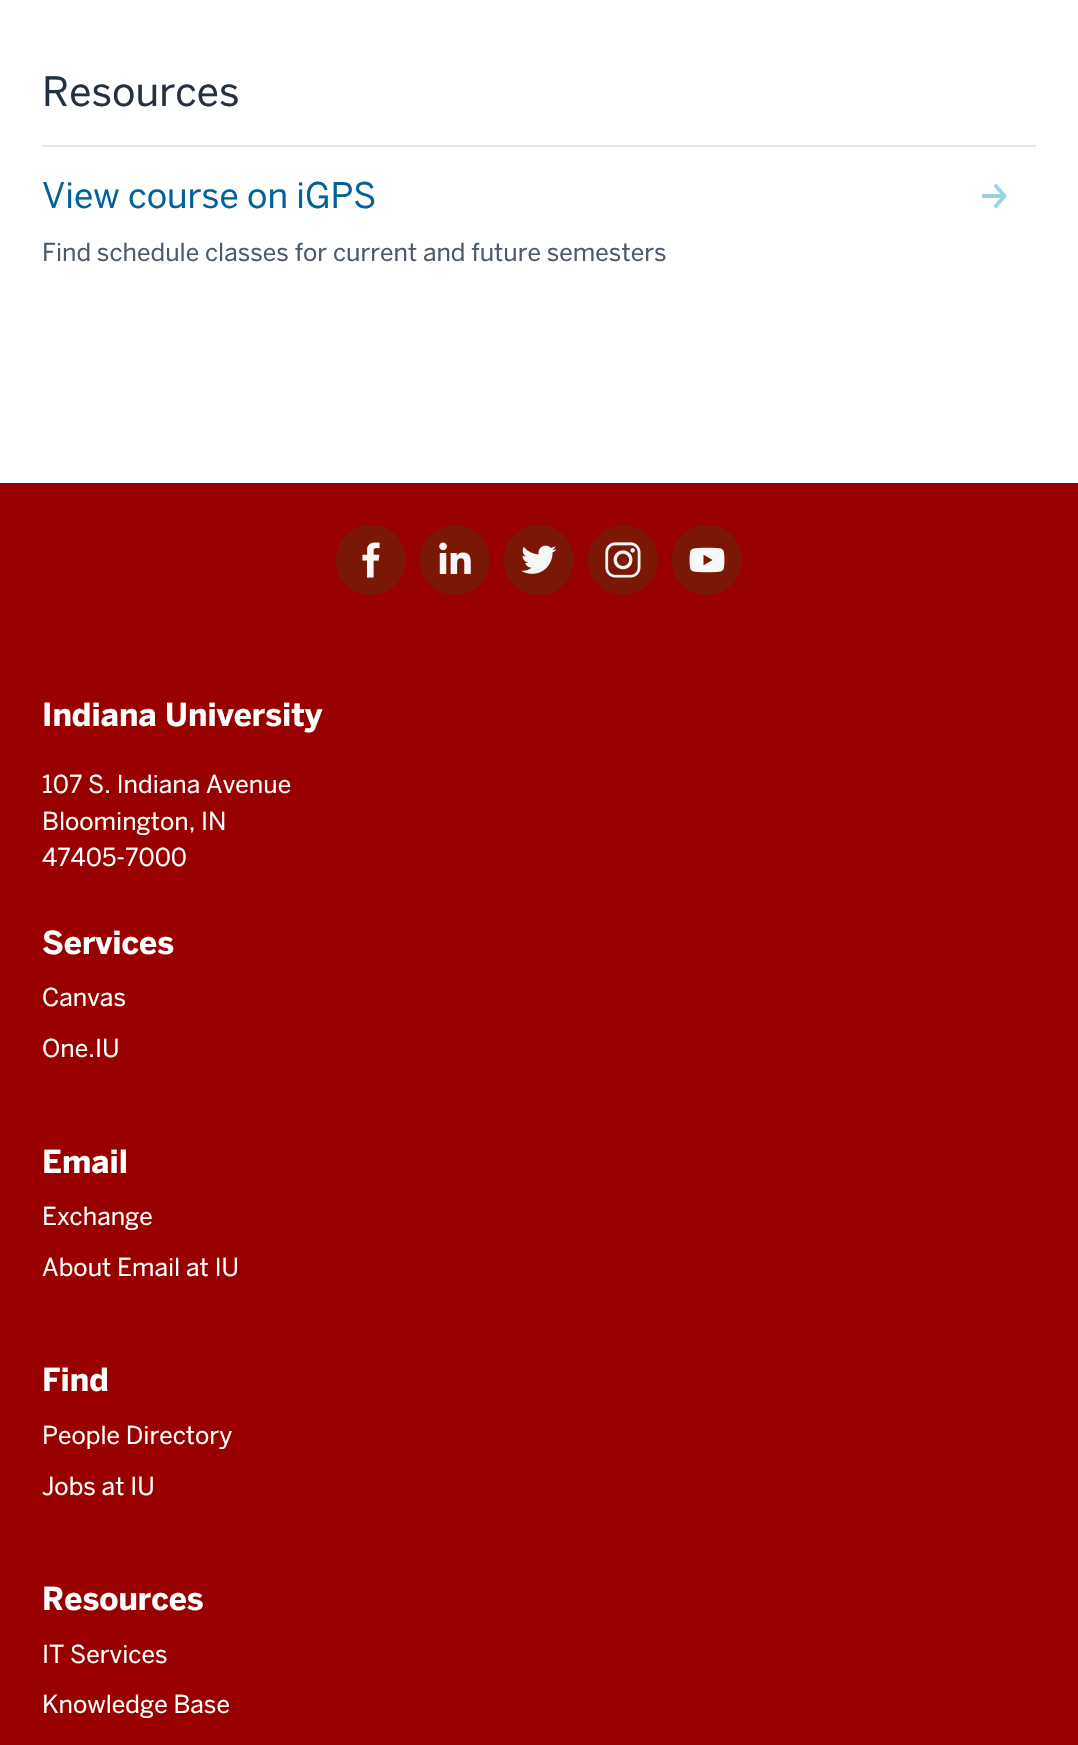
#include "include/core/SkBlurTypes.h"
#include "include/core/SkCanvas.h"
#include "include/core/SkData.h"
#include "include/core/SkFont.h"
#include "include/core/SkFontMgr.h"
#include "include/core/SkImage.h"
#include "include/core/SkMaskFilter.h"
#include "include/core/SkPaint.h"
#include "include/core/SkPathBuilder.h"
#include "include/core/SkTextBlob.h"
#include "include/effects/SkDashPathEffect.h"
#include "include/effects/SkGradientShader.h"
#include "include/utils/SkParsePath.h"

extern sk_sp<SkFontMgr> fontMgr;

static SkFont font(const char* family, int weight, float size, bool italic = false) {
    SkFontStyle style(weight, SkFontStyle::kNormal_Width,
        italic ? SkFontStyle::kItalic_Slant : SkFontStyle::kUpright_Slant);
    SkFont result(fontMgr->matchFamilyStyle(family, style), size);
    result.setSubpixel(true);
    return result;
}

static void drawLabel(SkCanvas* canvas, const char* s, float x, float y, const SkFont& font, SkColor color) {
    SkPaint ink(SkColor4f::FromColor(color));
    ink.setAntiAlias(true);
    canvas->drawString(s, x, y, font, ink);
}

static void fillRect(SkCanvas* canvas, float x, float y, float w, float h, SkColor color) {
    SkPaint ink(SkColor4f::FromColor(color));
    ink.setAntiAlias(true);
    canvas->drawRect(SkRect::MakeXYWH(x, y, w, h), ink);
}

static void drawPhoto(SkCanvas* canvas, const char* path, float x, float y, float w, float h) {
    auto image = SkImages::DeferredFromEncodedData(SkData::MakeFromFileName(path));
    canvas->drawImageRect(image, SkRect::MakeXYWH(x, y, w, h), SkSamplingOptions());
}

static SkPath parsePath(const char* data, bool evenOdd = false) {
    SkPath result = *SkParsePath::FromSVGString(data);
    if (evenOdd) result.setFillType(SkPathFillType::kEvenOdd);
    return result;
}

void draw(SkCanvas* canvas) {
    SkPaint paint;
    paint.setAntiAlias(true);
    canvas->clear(0xFFFFFFFF);
    SkFont font1 = font("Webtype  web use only", 400, 40.25f);
    drawLabel(canvas, "Resources", 42, 106, font1, 0xFF243142);
    fillRect(canvas, 42, 145, 994, 2, 0xFFE2E7E9);
    SkFont font2 = font("Webtype  web use only", 400, 35);
    drawLabel(canvas, "View course on iGPS", 42, 208, font2, 0xFF006298);
    paint.setColor(0xFF94D2E7);
    canvas->drawPath(parsePath("M982 194H1000.5L993.5 186L996 183.5L1007 196L996 208.5L993.5 206L1000.5 198H982Z"), paint);
    SkFont font3 = font("Webtype  web use only", 400, 24.5f);
    drawLabel(canvas, "Find schedule classes for current and future semesters", 42, 261, font3, 0xFF4C5A69);
    fillRect(canvas, 0, 483, 1078, 1262, 0xFF990000);
    drawPhoto(canvas, "assets/img1.png", 336, 525, 70, 70);
    drawPhoto(canvas, "assets/img2.png", 420, 525, 70, 70);
    drawPhoto(canvas, "assets/img3.png", 504, 525, 70, 70);
    drawPhoto(canvas, "assets/img4.png", 588, 525, 70, 70);
    drawPhoto(canvas, "assets/img5.png", 672, 525, 70, 70);
    SkFont font4 = font("Webtype  web use only", 700, 31.5f);
    drawLabel(canvas, "Indiana University", 42, 726, font4, 0xFFFFFFFF);
    drawLabel(canvas, "107 S. Indiana Avenue", 42, 793, font3, 0xFFFFFFFF);
    drawLabel(canvas, "Bloomington, IN", 42, 830, font3, 0xFFFFFFFF);
    drawLabel(canvas, "47405-7000", 42, 866, font3, 0xFFFFFFFF);
    drawLabel(canvas, "Services", 42, 954, font4, 0xFFFFFFFF);
    drawLabel(canvas, "Canvas", 42, 1006, font3, 0xFFFFFFFF);
    drawLabel(canvas, "One.IU", 42, 1057, font3, 0xFFFFFFFF);
    drawLabel(canvas, "Email", 42, 1173, font4, 0xFFFFFFFF);
    drawLabel(canvas, "Exchange", 42, 1225, font3, 0xFFFFFFFF);
    drawLabel(canvas, "About Email at IU", 42, 1276, font3, 0xFFFFFFFF);
    drawLabel(canvas, "Find", 42, 1391, font4, 0xFFFFFFFF);
    drawLabel(canvas, "People Directory", 42, 1444, font3, 0xFFFFFFFF);
    drawLabel(canvas, "Jobs at IU", 42, 1495, font3, 0xFFFFFFFF);
    drawLabel(canvas, "Resources", 42, 1610, font4, 0xFFFFFFFF);
    drawLabel(canvas, "IT Services", 42, 1663, font3, 0xFFFFFFFF);
    drawLabel(canvas, "Knowledge Base", 42, 1713, font3, 0xFFFFFFFF);
}
